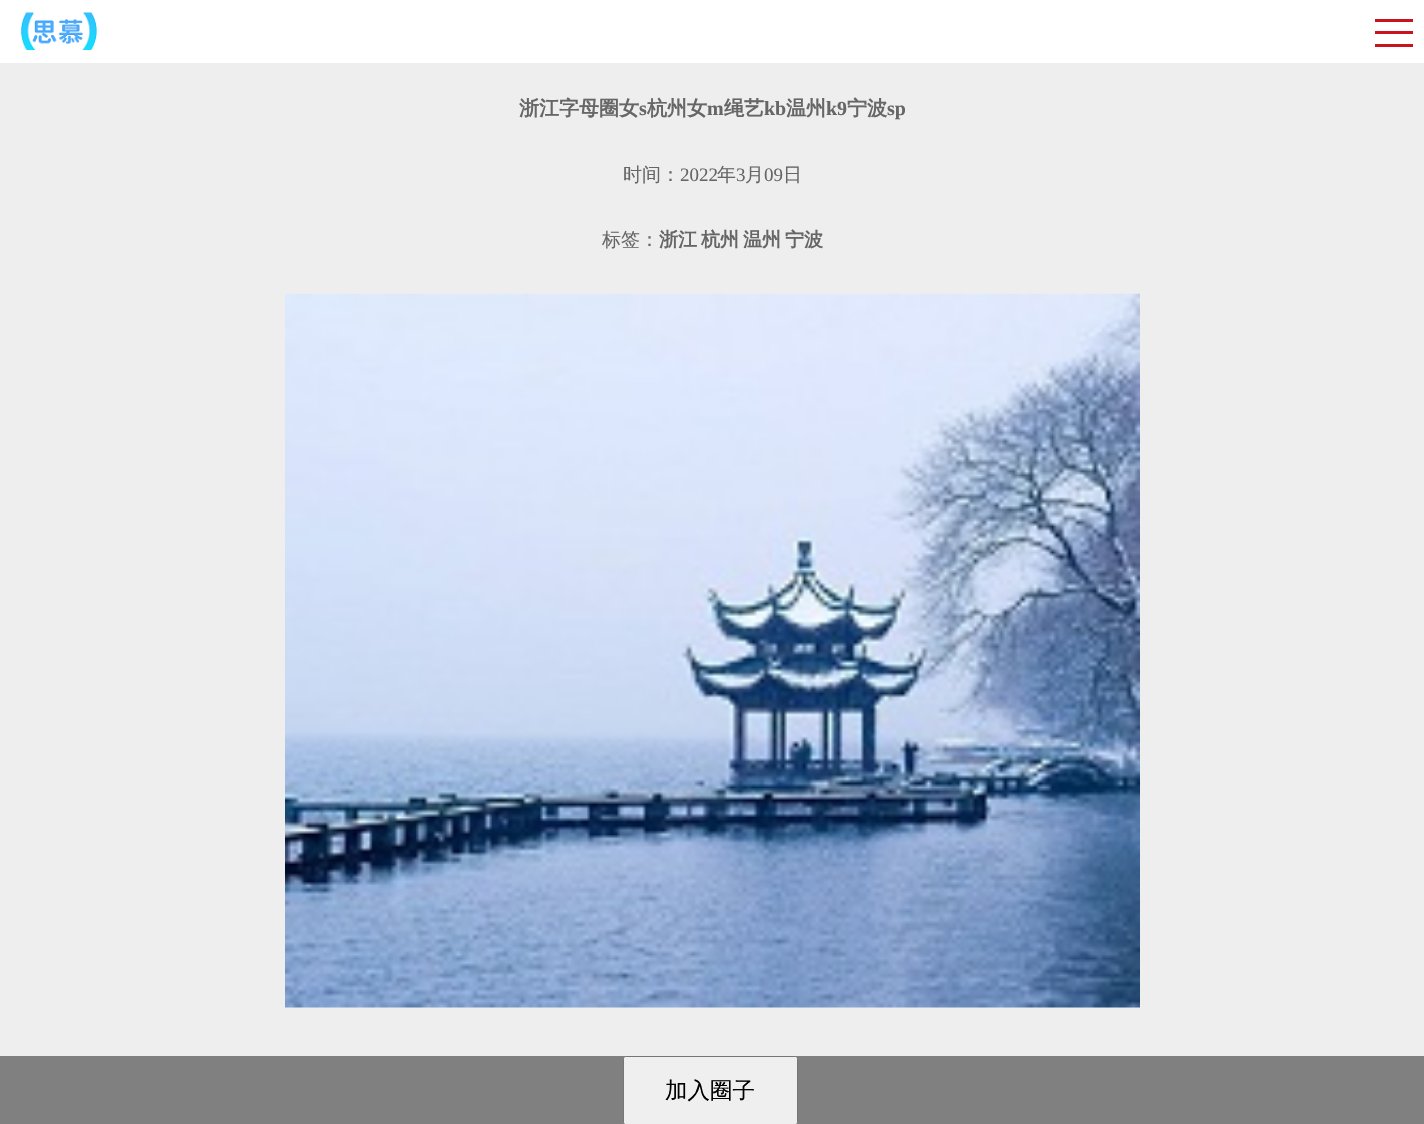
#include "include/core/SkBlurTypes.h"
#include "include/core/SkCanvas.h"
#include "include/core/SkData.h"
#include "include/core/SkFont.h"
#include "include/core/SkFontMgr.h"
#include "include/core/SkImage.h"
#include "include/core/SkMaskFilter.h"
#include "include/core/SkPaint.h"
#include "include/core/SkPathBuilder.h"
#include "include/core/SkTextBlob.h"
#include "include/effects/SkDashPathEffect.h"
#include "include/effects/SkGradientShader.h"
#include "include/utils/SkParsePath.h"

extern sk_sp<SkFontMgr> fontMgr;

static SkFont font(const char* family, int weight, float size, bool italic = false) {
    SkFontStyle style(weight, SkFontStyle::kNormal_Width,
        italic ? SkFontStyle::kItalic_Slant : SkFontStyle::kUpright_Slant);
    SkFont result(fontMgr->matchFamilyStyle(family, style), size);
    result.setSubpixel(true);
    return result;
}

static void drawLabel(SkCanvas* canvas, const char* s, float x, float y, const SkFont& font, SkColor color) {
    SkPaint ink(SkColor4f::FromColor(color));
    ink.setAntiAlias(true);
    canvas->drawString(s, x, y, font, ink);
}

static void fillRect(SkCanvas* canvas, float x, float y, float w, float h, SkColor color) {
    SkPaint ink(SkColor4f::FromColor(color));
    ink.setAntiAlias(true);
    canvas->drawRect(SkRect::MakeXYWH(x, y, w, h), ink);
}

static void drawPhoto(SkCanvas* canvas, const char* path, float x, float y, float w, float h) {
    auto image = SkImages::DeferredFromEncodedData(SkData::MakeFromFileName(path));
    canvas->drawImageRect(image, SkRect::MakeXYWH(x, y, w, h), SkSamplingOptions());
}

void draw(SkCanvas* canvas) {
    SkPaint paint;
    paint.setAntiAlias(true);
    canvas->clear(0xFFEEEEEE);
    fillRect(canvas, 0, 0, 1424, 63, 0xFFFFFFFF);
    drawPhoto(canvas, "assets/img1.png", 21, 12, 76, 38);
    fillRect(canvas, 1375, 19, 38, 3, 0xFFC9141E);
    fillRect(canvas, 1375, 31, 38, 3, 0xFFC9141E);
    fillRect(canvas, 1375, 44, 38, 3, 0xFFC9141E);
    SkFont font1 = font("WenQuanYi Zen Hei", 700, 20);
    drawLabel(canvas, "浙江字母圈女", 519, 115, font1, 0xFF666666);
    SkFont font2 = font("Liberation Serif", 700, 20);
    drawLabel(canvas, "s", 639, 115, font2, 0xFF666666);
    drawLabel(canvas, "杭州女", 647, 115, font1, 0xFF666666);
    drawLabel(canvas, "m", 707, 115, font2, 0xFF666666);
    drawLabel(canvas, "绳艺", 724, 115, font1, 0xFF666666);
    drawLabel(canvas, "kb", 764, 115, font2, 0xFF666666);
    drawLabel(canvas, "温州", 786, 115, font1, 0xFF666666);
    drawLabel(canvas, "k9", 826, 115, font2, 0xFF666666);
    drawLabel(canvas, "宁波", 847, 115, font1, 0xFF666666);
    drawLabel(canvas, "sp", 887, 115, font2, 0xFF666666);
    SkFont font3 = font("WenQuanYi Zen Hei", 500, 19);
    drawLabel(canvas, "时间：", 623, 181, font3, 0xFF666666);
    SkFont font4 = font("Liberation Serif", 400, 19);
    drawLabel(canvas, "2022", 680, 181, font4, 0xFF666666);
    drawLabel(canvas, "年", 717, 181, font3, 0xFF666666);
    drawLabel(canvas, "3", 736, 181, font4, 0xFF666666);
    drawLabel(canvas, "月", 745, 181, font3, 0xFF666666);
    drawLabel(canvas, "09", 764, 181, font4, 0xFF666666);
    drawLabel(canvas, "日", 783, 181, font3, 0xFF666666);
    drawLabel(canvas, "标签：", 602, 246, font3, 0xFF666666);
    SkFont font5 = font("WenQuanYi Zen Hei", 700, 19);
    drawLabel(canvas, "浙江", 659, 246, font5, 0xFF666666);
    drawLabel(canvas, "杭州", 701, 246, font5, 0xFF666666);
    drawLabel(canvas, "温州", 743, 246, font5, 0xFF666666);
    drawLabel(canvas, "宁波", 785, 246, font5, 0xFF666666);
    drawPhoto(canvas, "assets/img2.png", 285, 293, 855, 715);
    fillRect(canvas, 0, 1056, 1424, 68, 0xFF808080);
    paint.setColor(0xFFEFEFEF);
    canvas->drawRoundRect(SkRect::MakeXYWH(623.5f, 1056.5f, 174, 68), 2, 2, paint);
    paint.setStroke(true);
    paint.setStrokeWidth(1);
    paint.setColor(0xFF767676);
    canvas->drawRoundRect(SkRect::MakeXYWH(623.5f, 1056.5f, 174, 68), 2, 2, paint);
    SkFont font6 = font("WenQuanYi Zen Hei", 500, 22.5f);
    drawLabel(canvas, "加入圈子", 665, 1098, font6, 0xFF000000);
}
